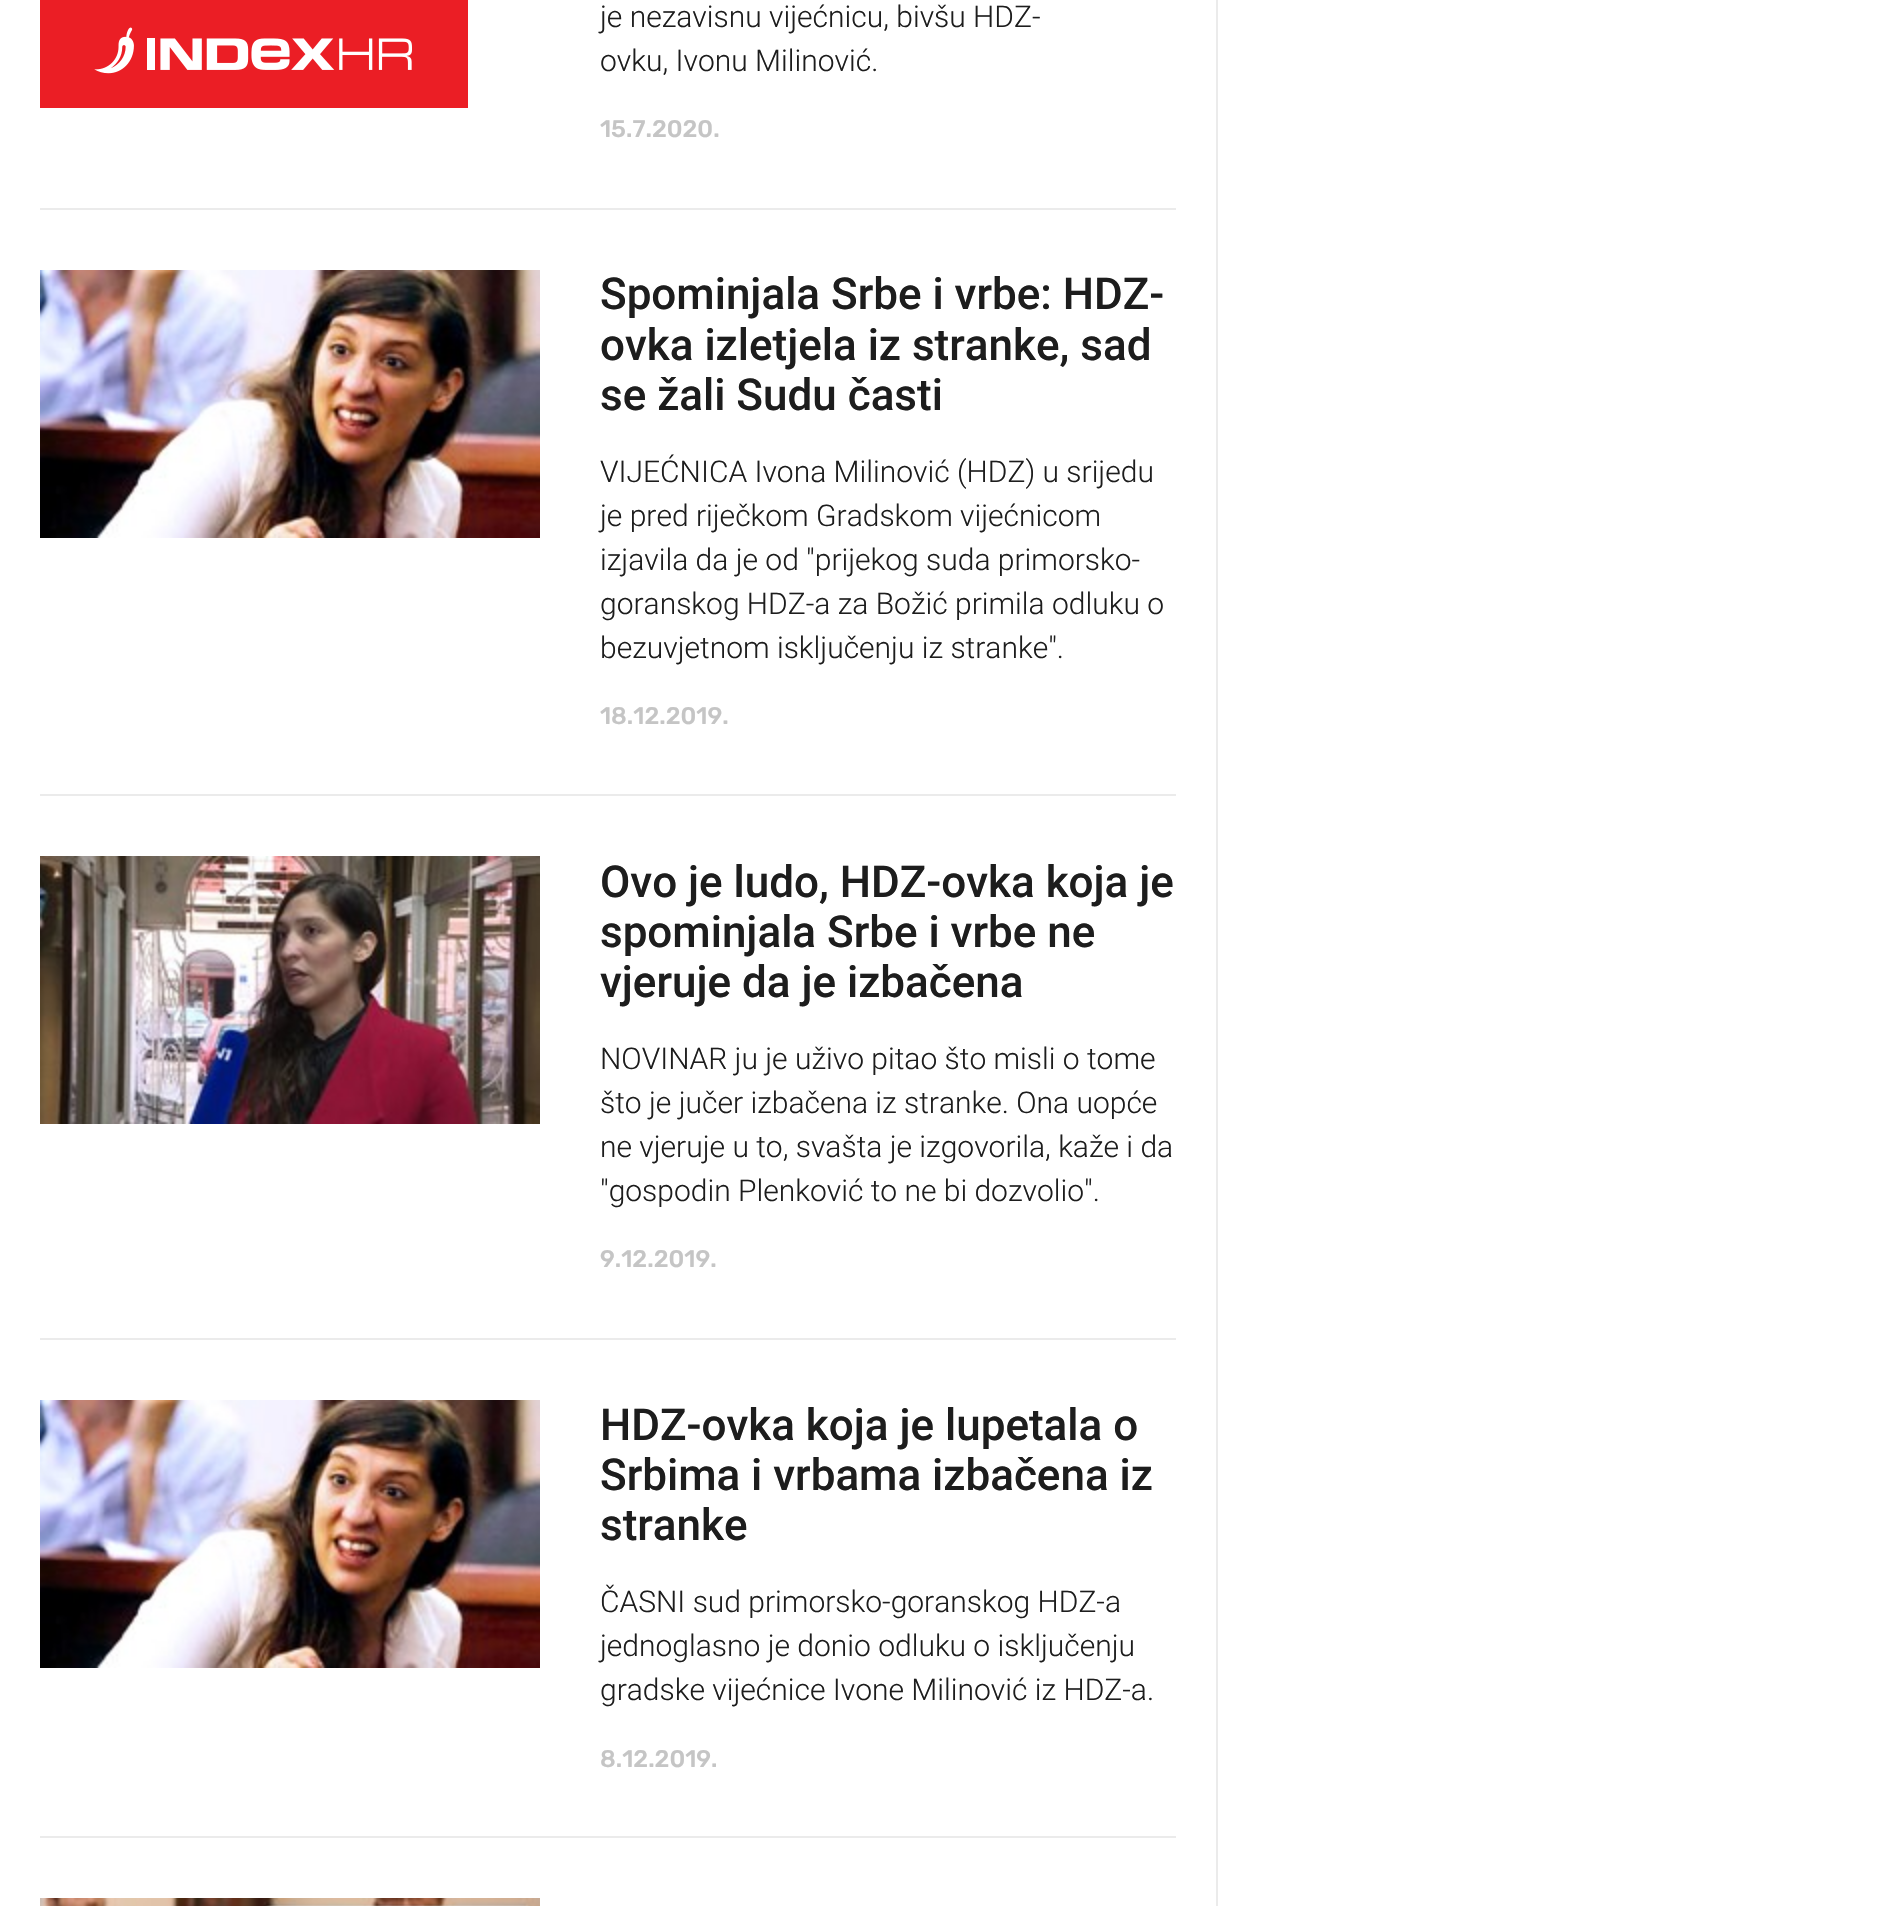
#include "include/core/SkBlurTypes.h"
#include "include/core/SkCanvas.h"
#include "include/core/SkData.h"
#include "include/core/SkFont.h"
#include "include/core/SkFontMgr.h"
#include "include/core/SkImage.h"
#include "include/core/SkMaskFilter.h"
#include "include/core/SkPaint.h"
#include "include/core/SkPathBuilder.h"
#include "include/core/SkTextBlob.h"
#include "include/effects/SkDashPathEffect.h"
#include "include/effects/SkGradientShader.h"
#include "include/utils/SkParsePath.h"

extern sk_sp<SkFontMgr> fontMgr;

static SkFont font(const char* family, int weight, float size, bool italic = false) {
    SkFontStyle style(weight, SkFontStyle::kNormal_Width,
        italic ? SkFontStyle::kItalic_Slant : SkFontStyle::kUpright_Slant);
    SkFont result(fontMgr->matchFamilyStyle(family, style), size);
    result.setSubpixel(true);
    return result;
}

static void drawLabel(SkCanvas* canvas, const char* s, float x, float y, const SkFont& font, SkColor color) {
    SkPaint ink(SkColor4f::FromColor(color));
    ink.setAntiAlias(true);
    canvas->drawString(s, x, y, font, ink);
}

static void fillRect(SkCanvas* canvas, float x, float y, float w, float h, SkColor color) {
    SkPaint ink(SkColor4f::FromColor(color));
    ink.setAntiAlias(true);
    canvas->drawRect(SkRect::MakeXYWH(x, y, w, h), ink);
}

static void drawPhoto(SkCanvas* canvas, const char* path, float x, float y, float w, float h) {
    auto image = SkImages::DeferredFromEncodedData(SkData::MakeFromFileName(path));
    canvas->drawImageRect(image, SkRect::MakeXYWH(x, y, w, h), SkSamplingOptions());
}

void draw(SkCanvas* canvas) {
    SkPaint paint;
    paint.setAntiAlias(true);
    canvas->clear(0xFFFFFFFF);
    fillRect(canvas, 40, 0, 428, 108, 0xFFEB1E25);
    drawPhoto(canvas, "assets/img1.png", 94, 27, 318, 47);
    fillRect(canvas, 1216, 0, 2, 1906, 0xFFEBEBEB);
    fillRect(canvas, 40, 208, 1136, 2, 0xFFEBEBEB);
    SkFont font1 = font("Roboto", 300, 30);
    drawLabel(canvas, "je nezavisnu vijećnicu, bivšu HDZ-", 600, 27, font1, 0xFF1D1D1D);
    drawLabel(canvas, "ovku, Ivonu Milinović.", 600, 71, font1, 0xFF1D1D1D);
    SkFont font2 = font("Rubik", 500, 24);
    drawLabel(canvas, "15.7.2020.", 600, 137, font2, 0xFFC5C5C5);
    fillRect(canvas, 40, 794, 1136, 2, 0xFFEBEBEB);
    drawPhoto(canvas, "assets/img2.png", 40, 270, 500, 268);
    SkFont font3 = font("Roboto", 500, 44);
    drawLabel(canvas, "Spominjala Srbe i vrbe: HDZ-", 600, 309, font3, 0xFF1D1D1D);
    drawLabel(canvas, "ovka izletjela iz stranke, sad", 600, 360, font3, 0xFF1D1D1D);
    drawLabel(canvas, "se žali Sudu časti", 600, 410, font3, 0xFF1D1D1D);
    drawLabel(canvas, "VIJEĆNICA Ivona Milinović (HDZ) u srijedu", 600, 482, font1, 0xFF1D1D1D);
    drawLabel(canvas, "je pred riječkom Gradskom vijećnicom", 600, 526, font1, 0xFF1D1D1D);
    drawLabel(canvas, "izjavila da je od \"prijekog suda primorsko-", 600, 570, font1, 0xFF1D1D1D);
    drawLabel(canvas, "goranskog HDZ-a za Božić primila odluku o", 600, 614, font1, 0xFF1D1D1D);
    drawLabel(canvas, "bezuvjetnom isključenju iz stranke\".", 600, 658, font1, 0xFF1D1D1D);
    drawLabel(canvas, "18.12.2019.", 600, 724, font2, 0xFFC5C5C5);
    fillRect(canvas, 40, 1338, 1136, 2, 0xFFEBEBEB);
    drawPhoto(canvas, "assets/img3.png", 40, 856, 500, 268);
    drawLabel(canvas, "Ovo je ludo, HDZ-ovka koja je", 600, 897, font3, 0xFF1D1D1D);
    drawLabel(canvas, "spominjala Srbe i vrbe ne", 600, 947, font3, 0xFF1D1D1D);
    drawLabel(canvas, "vjeruje da je izbačena", 600, 997, font3, 0xFF1D1D1D);
    drawLabel(canvas, "NOVINAR ju je uživo pitao što misli o tome", 600, 1069, font1, 0xFF1D1D1D);
    drawLabel(canvas, "što je jučer izbačena iz stranke. Ona uopće", 600, 1113, font1, 0xFF1D1D1D);
    drawLabel(canvas, "ne vjeruje u to, svašta je izgovorila, kaže i da", 600, 1157, font1, 0xFF1D1D1D);
    drawLabel(canvas, "\"gospodin Plenković to ne bi dozvolio\".", 600, 1201, font1, 0xFF1D1D1D);
    drawLabel(canvas, "9.12.2019.", 600, 1267, font2, 0xFFC5C5C5);
    fillRect(canvas, 40, 1836, 1136, 2, 0xFFEBEBEB);
    drawPhoto(canvas, "assets/img2.png", 40, 1400, 500, 268);
    drawLabel(canvas, "HDZ-ovka koja je lupetala o", 600, 1440, font3, 0xFF1D1D1D);
    drawLabel(canvas, "Srbima i vrbama izbačena iz", 600, 1490, font3, 0xFF1D1D1D);
    drawLabel(canvas, "stranke", 600, 1540, font3, 0xFF1D1D1D);
    drawLabel(canvas, "ČASNI sud primorsko-goranskog HDZ-a", 600, 1612, font1, 0xFF1D1D1D);
    drawLabel(canvas, "jednoglasno je donio odluku o isključenju", 600, 1656, font1, 0xFF1D1D1D);
    drawLabel(canvas, "gradske vijećnice Ivone Milinović iz HDZ-a.", 600, 1700, font1, 0xFF1D1D1D);
    drawLabel(canvas, "8.12.2019.", 600, 1767, font2, 0xFFC5C5C5);
    drawPhoto(canvas, "assets/img4.png", 40, 1898, 500, 8);
}
